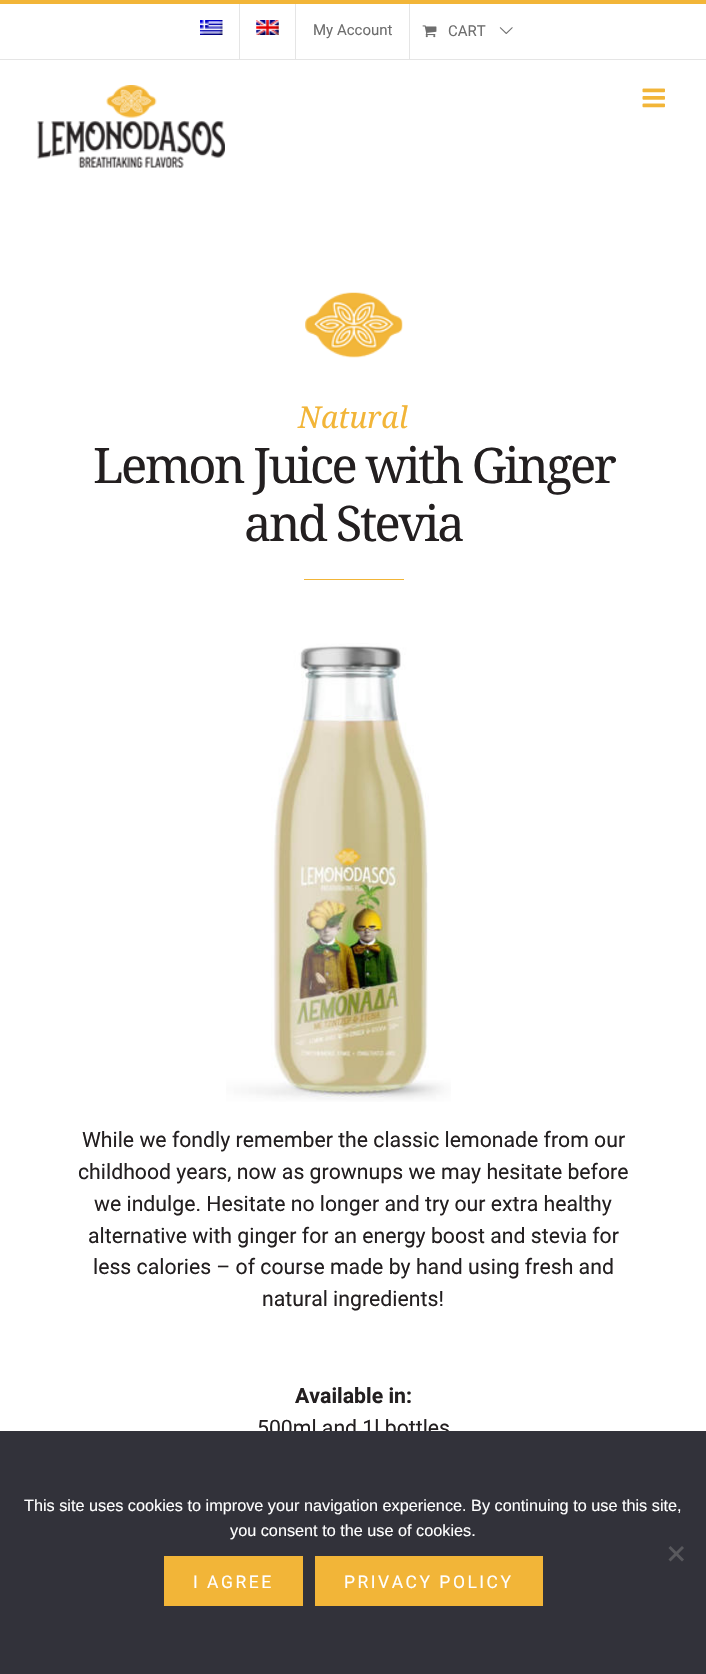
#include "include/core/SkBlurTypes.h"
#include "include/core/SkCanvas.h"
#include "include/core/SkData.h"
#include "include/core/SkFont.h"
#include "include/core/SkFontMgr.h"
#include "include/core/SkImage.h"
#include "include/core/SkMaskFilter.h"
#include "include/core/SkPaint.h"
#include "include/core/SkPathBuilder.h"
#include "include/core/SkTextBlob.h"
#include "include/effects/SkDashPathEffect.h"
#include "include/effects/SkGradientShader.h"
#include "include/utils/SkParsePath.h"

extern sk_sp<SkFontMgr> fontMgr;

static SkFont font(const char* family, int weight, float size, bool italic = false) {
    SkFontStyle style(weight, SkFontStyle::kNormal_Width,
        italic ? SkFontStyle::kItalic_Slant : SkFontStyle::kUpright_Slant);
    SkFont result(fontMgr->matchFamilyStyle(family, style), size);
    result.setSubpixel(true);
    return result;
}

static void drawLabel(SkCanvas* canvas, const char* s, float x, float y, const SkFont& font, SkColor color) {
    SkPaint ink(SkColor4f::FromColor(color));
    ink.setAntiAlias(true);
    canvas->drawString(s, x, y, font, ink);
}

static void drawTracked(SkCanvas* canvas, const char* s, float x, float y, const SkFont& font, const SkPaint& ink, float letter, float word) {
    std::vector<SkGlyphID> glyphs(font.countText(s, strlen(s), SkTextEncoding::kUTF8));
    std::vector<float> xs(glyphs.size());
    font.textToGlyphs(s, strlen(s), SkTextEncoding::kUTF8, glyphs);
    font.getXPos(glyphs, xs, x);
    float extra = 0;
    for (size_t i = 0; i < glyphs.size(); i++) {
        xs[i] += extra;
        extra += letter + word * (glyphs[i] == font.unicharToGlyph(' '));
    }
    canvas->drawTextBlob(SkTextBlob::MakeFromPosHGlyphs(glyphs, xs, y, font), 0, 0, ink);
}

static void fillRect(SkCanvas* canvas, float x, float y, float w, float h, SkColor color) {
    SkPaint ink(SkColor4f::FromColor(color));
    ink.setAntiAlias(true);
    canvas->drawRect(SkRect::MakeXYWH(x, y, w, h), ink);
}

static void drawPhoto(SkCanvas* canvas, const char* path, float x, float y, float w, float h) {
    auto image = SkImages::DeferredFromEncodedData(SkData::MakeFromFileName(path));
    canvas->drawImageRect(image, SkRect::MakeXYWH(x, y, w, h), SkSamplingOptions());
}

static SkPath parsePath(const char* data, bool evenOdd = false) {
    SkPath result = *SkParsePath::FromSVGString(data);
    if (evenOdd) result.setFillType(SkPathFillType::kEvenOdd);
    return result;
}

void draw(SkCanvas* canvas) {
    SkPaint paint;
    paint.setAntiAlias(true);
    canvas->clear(0xFFFFFFFF);
    fillRect(canvas, 0, 0, 706, 4, 0xFFF2B538);
    fillRect(canvas, 0, 59, 706, 1, 0xFFE5E5E5);
    drawPhoto(canvas, "assets/img1.png", 200, 20, 23, 15);
    fillRect(canvas, 239, 4, 1, 55, 0xFFE5E5E5);
    drawPhoto(canvas, "assets/img2.png", 256, 20, 23, 15);
    fillRect(canvas, 295, 4, 1, 55, 0xFFE5E5E5);
    SkFont font1 = font("Roboto", 400, 15);
    drawLabel(canvas, "My Account", 313, 35, font1, 0xFF6E6E6E);
    fillRect(canvas, 409, 4, 1, 55, 0xFFE5E5E5);
    drawPhoto(canvas, "assets/img3.png", 422, 25, 15, 13);
    drawLabel(canvas, "CART", 448, 36, font1, 0xFF6E6E6E);
    drawPhoto(canvas, "assets/img4.png", 499, 27, 14, 7);
    drawPhoto(canvas, "assets/img5.png", 37, 85, 188, 83);
    drawPhoto(canvas, "assets/img6.png", 642, 88, 23, 20);
    drawPhoto(canvas, "assets/img7.png", 305, 292, 98, 66);
    SkFont font2 = font("Noto Serif", 400, 30, true);
    drawLabel(canvas, "Natural", 298, 428, font2, 0xFFF2B538);
    SkFont font3 = font("Noto Serif", 400, 48.9f);
    paint.setColor(0xFF231F20);
    drawTracked(canvas, "Lemon Juice with Ginger", 93, 483, font3, paint, -2.5f, 0);
    drawTracked(canvas, "and Stevia", 244, 541, font3, paint, -2.5f, 0);
    fillRect(canvas, 304, 579, 100, 1, 0xFFF2B538);
    drawPhoto(canvas, "assets/img8.png", 226, 643, 225, 459);
    SkFont font4 = font("Roboto", 400, 21.25f);
    drawLabel(canvas, "While we fondly remember the classic lemonade from our", 82, 1147, font4, 0xFF231F20);
    drawLabel(canvas, "childhood years, now as grownups we may hesitate before", 78, 1179, font4, 0xFF231F20);
    drawLabel(canvas, "we indulge. Hesitate no longer and try our extra healthy", 94, 1211, font4, 0xFF231F20);
    drawLabel(canvas, "alternative with ginger for an energy boost and stevia for", 88, 1243, font4, 0xFF231F20);
    drawLabel(canvas, "less calories – of course made by hand using fresh and", 93, 1274, font4, 0xFF231F20);
    drawLabel(canvas, "natural ingredients!", 262, 1306, font4, 0xFF231F20);
    SkFont font5 = font("Roboto", 700, 21.25f);
    drawLabel(canvas, "Available in:", 295, 1403, font5, 0xFF231F20);
    drawLabel(canvas, "500ml and 1l bottles", 257, 1435, font4, 0xFF231F20);
    fillRect(canvas, 0, 1431, 706, 243, 0xFF32323A);
    SkFont font6 = font("Liberation Sans", 400, 16.25f);
    drawLabel(canvas, "This site uses cookies to improve your navigation experience. By continuing to use this site,", 24, 1511, font6, 0xFFFFFFFF);
    drawLabel(canvas, "you consent to the use of cookies.", 230, 1536, font6, 0xFFFFFFFF);
    paint.setColor(0xFF59595D);
    canvas->drawPath(parsePath("M682 1546L684 1548L670.5 1561.5L668.5 1559.5Z"), paint);
    canvas->drawPath(parsePath("M668.5 1548L670.5 1546L684 1559.5L682 1561.5Z"), paint);
    fillRect(canvas, 164, 1556, 139, 50, 0xFFF2B538);
    SkFont font7 = font("Roboto", 400, 17.5f);
    paint.setColor(0xFFFFFFFF);
    drawTracked(canvas, "I AGREE", 193, 1588, font7, paint, 2.5f, 0);
    fillRect(canvas, 315, 1556, 228, 50, 0xFFF2B538);
    drawTracked(canvas, "PRIVACY POLICY", 344, 1588, font7, paint, 2.5f, 0);
}
